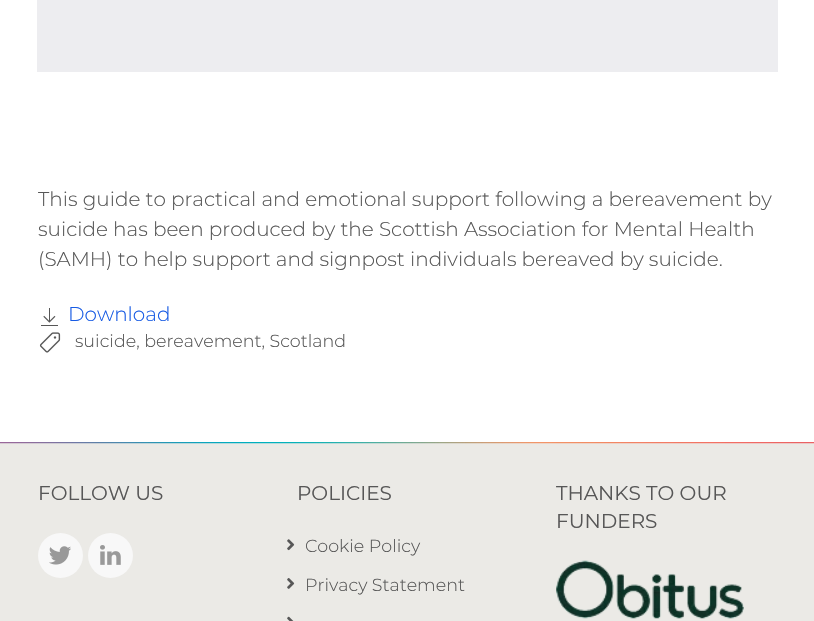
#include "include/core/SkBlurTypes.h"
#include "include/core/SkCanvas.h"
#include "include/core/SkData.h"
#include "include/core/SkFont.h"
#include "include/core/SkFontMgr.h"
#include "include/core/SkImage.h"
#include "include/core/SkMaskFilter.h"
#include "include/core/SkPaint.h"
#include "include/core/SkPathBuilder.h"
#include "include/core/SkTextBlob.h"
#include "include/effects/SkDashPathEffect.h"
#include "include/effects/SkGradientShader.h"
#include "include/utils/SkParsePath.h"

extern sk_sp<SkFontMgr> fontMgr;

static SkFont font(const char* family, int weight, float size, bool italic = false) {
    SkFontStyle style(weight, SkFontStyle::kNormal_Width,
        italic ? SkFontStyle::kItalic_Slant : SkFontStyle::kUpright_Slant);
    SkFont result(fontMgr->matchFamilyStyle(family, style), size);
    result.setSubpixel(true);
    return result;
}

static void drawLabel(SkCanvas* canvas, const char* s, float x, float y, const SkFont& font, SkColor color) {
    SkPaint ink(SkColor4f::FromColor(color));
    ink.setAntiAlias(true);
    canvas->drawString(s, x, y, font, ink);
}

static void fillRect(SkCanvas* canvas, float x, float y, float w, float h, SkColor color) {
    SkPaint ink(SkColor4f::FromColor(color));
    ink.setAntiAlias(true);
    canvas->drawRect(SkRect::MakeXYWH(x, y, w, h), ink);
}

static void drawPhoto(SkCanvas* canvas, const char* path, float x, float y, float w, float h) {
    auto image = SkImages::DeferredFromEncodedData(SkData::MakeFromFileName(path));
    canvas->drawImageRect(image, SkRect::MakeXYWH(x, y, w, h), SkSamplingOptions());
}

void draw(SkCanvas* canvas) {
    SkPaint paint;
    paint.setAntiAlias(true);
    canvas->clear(0xFFFFFFFF);
    fillRect(canvas, 37, 0, 741, 72, 0xFFEDEDF0);
    SkFont font1 = font("Montserrat", 300, 20);
    drawLabel(canvas, "This guide to practical and emotional support following a bereavement by", 38, 206, font1, 0xFF575757);
    drawLabel(canvas, "suicide has been produced by the Scottish Association for Mental Health", 38, 236, font1, 0xFF575757);
    drawLabel(canvas, "(SAMH) to help support and signpost individuals bereaved by suicide.", 38, 266, font1, 0xFF575757);
    drawPhoto(canvas, "assets/img1.png", 41, 308, 17, 18);
    drawLabel(canvas, "Download", 68, 321, font1, 0xFF175BE4);
    drawPhoto(canvas, "assets/img2.png", 39, 332, 22, 21);
    SkFont font2 = font("Montserrat", 300, 17.5f);
    drawLabel(canvas, "suicide, bereavement, Scotland", 75, 347, font2, 0xFF575757);
    fillRect(canvas, 0, 443, 814, 178, 0xFFEBEAE6);
    drawPhoto(canvas, "assets/img3.png", 0, 442, 814, 2);
    SkFont font3 = font("Montserrat", 400, 20);
    drawLabel(canvas, "FOLLOW US", 38, 500, font3, 0xFF575757);
    paint.setColor(0xFFF8F8F8);
    canvas->drawCircle(60.5f, 555.5f, 22.5f, paint);
    drawPhoto(canvas, "assets/img4.png", 49, 546, 22, 19);
    canvas->drawCircle(110.5f, 555.5f, 22.5f, paint);
    drawPhoto(canvas, "assets/img5.png", 100, 545, 21, 20);
    drawLabel(canvas, "POLICIES", 297, 500, font3, 0xFF575757);
    drawPhoto(canvas, "assets/img6.png", 287, 539, 8, 12);
    drawLabel(canvas, "Cookie Policy", 305, 552, font2, 0xFF575757);
    drawPhoto(canvas, "assets/img7.png", 287, 578, 8, 11);
    drawLabel(canvas, "Privacy Statement", 305, 591, font2, 0xFF575757);
    drawPhoto(canvas, "assets/img8.png", 287, 616, 7, 5);
    drawLabel(canvas, "THANKS TO OUR", 556, 500, font3, 0xFF575757);
    drawLabel(canvas, "FUNDERS", 556, 528, font3, 0xFF575757);
    drawPhoto(canvas, "assets/img9.png", 556, 560, 188, 59);
}
